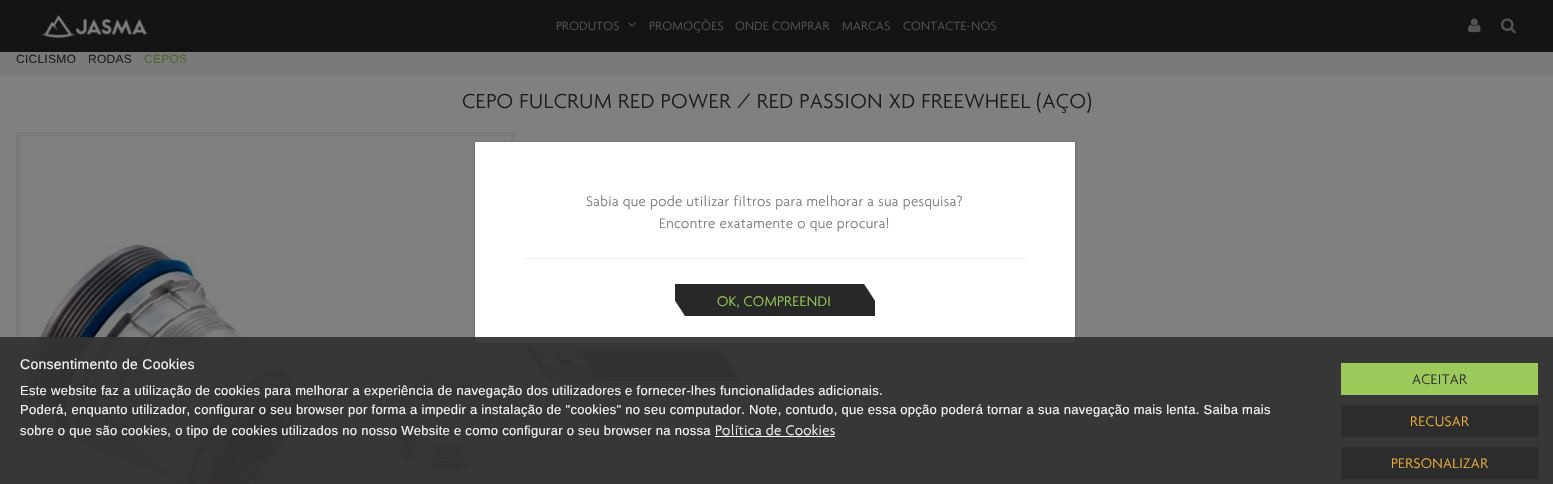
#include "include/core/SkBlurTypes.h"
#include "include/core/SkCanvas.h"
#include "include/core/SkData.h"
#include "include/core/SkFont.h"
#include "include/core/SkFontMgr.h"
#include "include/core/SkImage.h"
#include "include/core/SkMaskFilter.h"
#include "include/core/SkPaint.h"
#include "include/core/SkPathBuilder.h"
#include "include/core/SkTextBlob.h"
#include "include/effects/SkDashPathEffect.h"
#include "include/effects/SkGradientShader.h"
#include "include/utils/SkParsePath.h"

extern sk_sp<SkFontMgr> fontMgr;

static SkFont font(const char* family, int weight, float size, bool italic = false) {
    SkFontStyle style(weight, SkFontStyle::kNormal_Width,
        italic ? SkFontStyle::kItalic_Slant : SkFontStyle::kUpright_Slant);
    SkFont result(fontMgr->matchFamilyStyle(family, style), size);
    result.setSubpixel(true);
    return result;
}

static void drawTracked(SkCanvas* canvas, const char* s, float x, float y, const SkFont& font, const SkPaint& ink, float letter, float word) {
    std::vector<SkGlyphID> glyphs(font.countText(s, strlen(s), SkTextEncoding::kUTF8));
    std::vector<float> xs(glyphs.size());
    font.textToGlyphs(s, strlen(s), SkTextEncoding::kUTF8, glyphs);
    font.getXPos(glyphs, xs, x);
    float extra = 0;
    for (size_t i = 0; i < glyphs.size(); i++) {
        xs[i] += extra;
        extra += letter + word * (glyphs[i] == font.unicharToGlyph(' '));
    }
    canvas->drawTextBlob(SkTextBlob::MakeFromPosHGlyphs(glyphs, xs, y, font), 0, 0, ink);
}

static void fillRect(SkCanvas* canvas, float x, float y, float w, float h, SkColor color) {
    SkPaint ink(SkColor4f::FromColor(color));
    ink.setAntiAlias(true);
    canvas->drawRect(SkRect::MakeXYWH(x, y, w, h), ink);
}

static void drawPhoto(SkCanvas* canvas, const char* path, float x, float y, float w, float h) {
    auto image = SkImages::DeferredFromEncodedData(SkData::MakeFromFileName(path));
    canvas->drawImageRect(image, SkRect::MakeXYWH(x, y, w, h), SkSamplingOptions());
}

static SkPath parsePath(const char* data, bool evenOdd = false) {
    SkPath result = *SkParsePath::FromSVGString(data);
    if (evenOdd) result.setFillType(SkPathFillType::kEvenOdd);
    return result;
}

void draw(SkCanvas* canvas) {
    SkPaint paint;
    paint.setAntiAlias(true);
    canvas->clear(0xFF808080);
    fillRect(canvas, 0, 0, 1553, 52, 0xFF141414);
    drawPhoto(canvas, "assets/img1.png", 41, 15, 107, 24);
    SkFont font1 = font("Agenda", 300, 13);
    paint.setColor(0xFF555555);
    drawTracked(canvas, "PRODUTOS", 556, 30, font1, paint, 0.25f, 0);
    drawPhoto(canvas, "assets/img2.png", 628, 22, 8, 5);
    drawTracked(canvas, "PROMOÇÕES", 649, 30, font1, paint, 0.25f, 0);
    drawTracked(canvas, "ONDE COMPRAR", 735, 30, font1, paint, 0.25f, 0);
    drawTracked(canvas, "MARCAS", 842, 30, font1, paint, 0.25f, 0);
    drawTracked(canvas, "CONTACTE-NOS", 903, 30, font1, paint, 0.25f, 0);
    drawPhoto(canvas, "assets/img3.png", 1468, 18, 13, 15);
    drawPhoto(canvas, "assets/img4.png", 1501, 18, 15, 16);
    fillRect(canvas, 0, 52, 1553, 24, 0xFF7A7A7A);
    SkFont font2 = font("Liberation Sans", 400, 12);
    paint.setColor(0xFF1D1B1D);
    drawTracked(canvas, "CICLISMO", 16, 63, font2, paint, 0.25f, 0);
    drawTracked(canvas, "RODAS", 88, 63, font2, paint, 0.25f, 0);
    paint.setColor(0xFF4E672C);
    drawTracked(canvas, "CEPOS", 144, 63, font2, paint, 0.25f, 0);
    SkFont font3 = font("Agenda", 300, 22);
    paint.setColor(0xFF1D1B1D);
    drawTracked(canvas, "CEPO FULCRUM RED POWER / RED PASSION XD FREEWHEEL (AÇO)", 462, 108, font3, paint, 0.45f, 0);
    fillRect(canvas, 16, 132, 499, 352, 0xFF797979);
    fillRect(canvas, 20, 136, 491, 348, 0xFF808080);
    drawPhoto(canvas, "assets/img5.png", 27, 244, 478, 240);
    paint.setColor(0xFF141414);
    canvas->drawPath(parsePath("M527 349H720L742 381H549Z"), paint);
    drawPhoto(canvas, "assets/img6.png", 527, 347, 76, 36);
    drawPhoto(canvas, "assets/img7.png", 557, 356, 16, 16);
    paint.setColor(0x4D000000);
    paint.setMaskFilter(SkMaskFilter::MakeBlur(kNormal_SkBlurStyle, 1.5f));
    canvas->drawRect(SkRect::MakeXYWH(475, 143, 600, 201), paint);
    paint.setMaskFilter(nullptr);
    fillRect(canvas, 475, 142, 600, 201, 0xFFFFFFFF);
    SkFont font4 = font("Agenda", 300, 15);
    paint.setColor(0xFF7E7E7E);
    drawTracked(canvas, "Sabia que pode utilizar filtros para melhorar a sua pesquisa?", 586, 206, font4, paint, 0.3f, 0);
    drawTracked(canvas, "Encontre exatamente o que procura!", 659, 228, font4, paint, 0.3f, 0);
    fillRect(canvas, 523, 258, 504, 1, 0xFFF2F2F2);
    canvas->save();
    canvas->clipRect(SkRect::MakeXYWH(675, 283, 200, 36));
    paint.setColor(0xFF282828);
    canvas->drawPath(parsePath("M664 284H864L885 316H685Z"), paint);
    canvas->restore();
    paint.setColor(0xFF9CCD58);
    drawTracked(canvas, "OK, COMPREENDI", 717, 306, font4, paint, 0.3f, 0);
    fillRect(canvas, 0, 337, 1553, 147, 0xF2333333);
    SkFont font5 = font("Liberation Sans", 400, 14);
    paint.setColor(0xFFF5F5F5);
    drawTracked(canvas, "Consentimento de Cookies", 20, 369, font5, paint, 0.28f, 0);
    SkFont font6 = font("Liberation Sans", 400, 13);
    drawTracked(canvas, "Este website faz a utilização de cookies para melhorar a experiência de navegação dos utilizadores e fornecer-lhes funcionalidades adicionais.", 20, 395, font6, paint, 0.28f, 0);
    drawTracked(canvas, "Poderá, enquanto utilizador, configurar o seu browser por forma a impedir a instalação de \"cookies\" no seu computador. Note, contudo, que essa opção poderá tornar a sua navegação mais lenta. Saiba mais", 20, 414, font6, paint, 0.28f, 0);
    drawTracked(canvas, "sobre o que são cookies, o tipo de cookies utilizados no nosso Website e como configurar o seu browser na nossa", 20, 435, font6, paint, 0.28f, 0);
    drawTracked(canvas, "Política de Cookies", 715, 435, font4, paint, 0.3f, 0);
    fillRect(canvas, 715, 436, 120, 1, 0xFFF9F9F9);
    fillRect(canvas, 1341, 363, 197, 32, 0xFF9BC95A);
    paint.setColor(0xFF2C2C2C);
    drawTracked(canvas, "ACEITAR", 1412, 384, font4, paint, 0.3f, 0);
    fillRect(canvas, 1341, 405, 197, 32, 0xFF2C2C2C);
    paint.setColor(0xFFF0B03B);
    drawTracked(canvas, "RECUSAR", 1410, 426, font4, paint, 0.3f, 0);
    fillRect(canvas, 1341, 447, 197, 32, 0xFF2C2C2C);
    drawTracked(canvas, "PERSONALIZAR", 1391, 468, font4, paint, 0.3f, 0);
}
